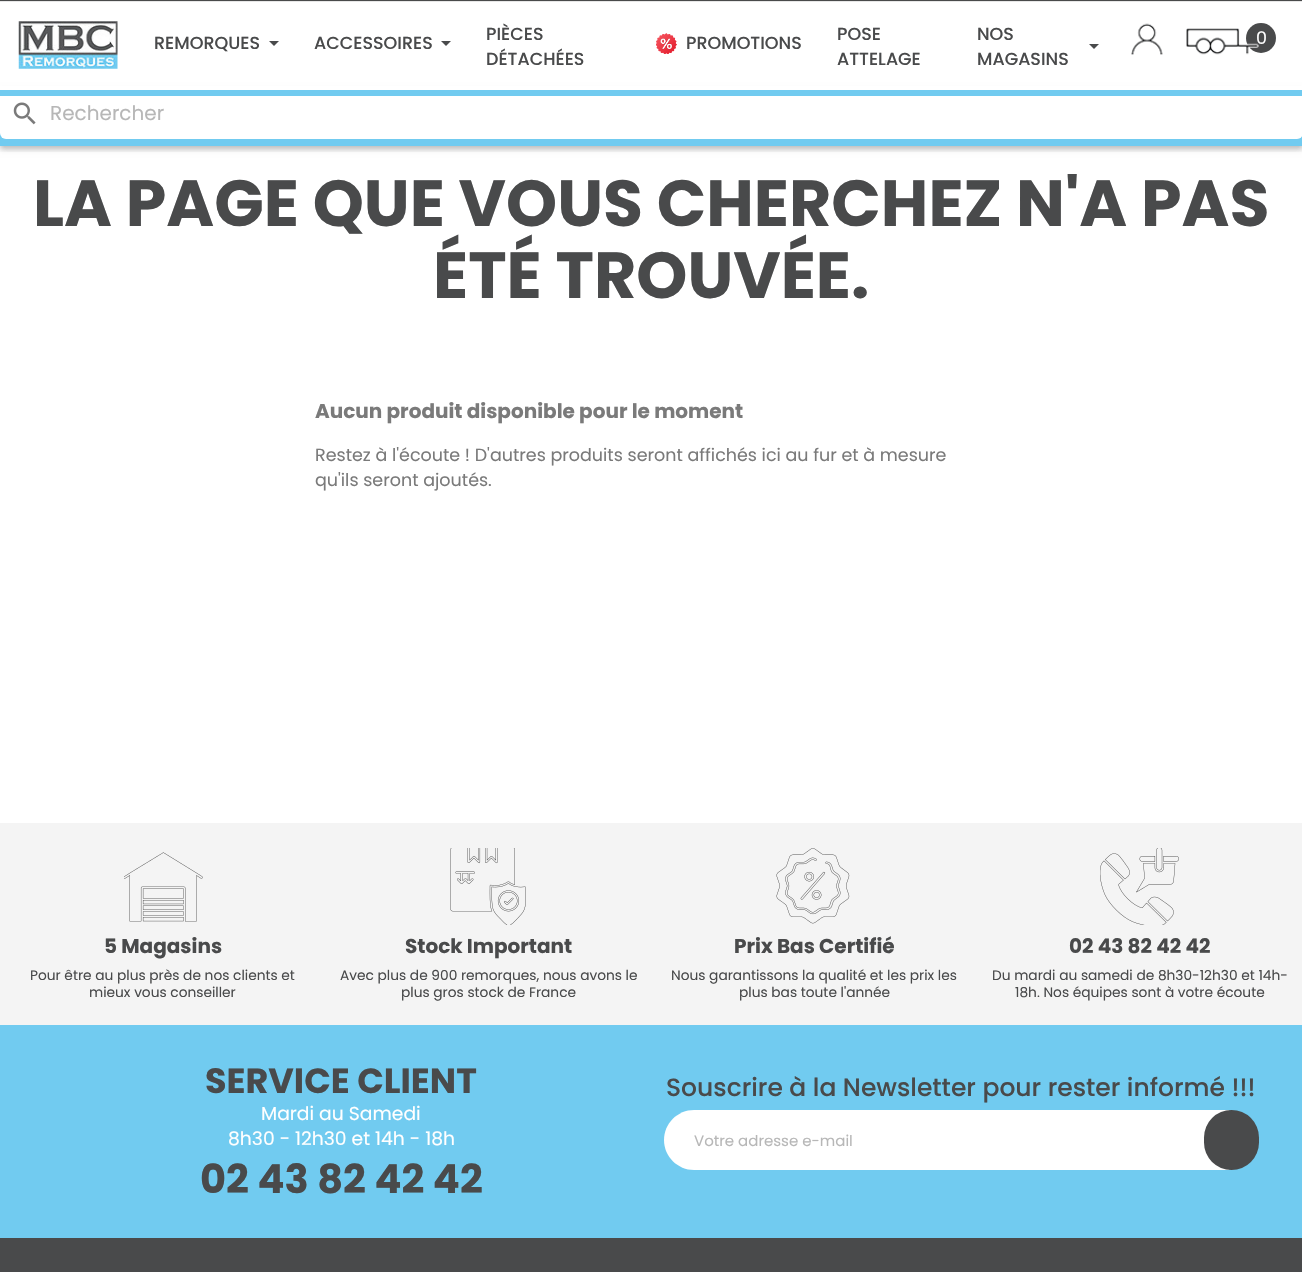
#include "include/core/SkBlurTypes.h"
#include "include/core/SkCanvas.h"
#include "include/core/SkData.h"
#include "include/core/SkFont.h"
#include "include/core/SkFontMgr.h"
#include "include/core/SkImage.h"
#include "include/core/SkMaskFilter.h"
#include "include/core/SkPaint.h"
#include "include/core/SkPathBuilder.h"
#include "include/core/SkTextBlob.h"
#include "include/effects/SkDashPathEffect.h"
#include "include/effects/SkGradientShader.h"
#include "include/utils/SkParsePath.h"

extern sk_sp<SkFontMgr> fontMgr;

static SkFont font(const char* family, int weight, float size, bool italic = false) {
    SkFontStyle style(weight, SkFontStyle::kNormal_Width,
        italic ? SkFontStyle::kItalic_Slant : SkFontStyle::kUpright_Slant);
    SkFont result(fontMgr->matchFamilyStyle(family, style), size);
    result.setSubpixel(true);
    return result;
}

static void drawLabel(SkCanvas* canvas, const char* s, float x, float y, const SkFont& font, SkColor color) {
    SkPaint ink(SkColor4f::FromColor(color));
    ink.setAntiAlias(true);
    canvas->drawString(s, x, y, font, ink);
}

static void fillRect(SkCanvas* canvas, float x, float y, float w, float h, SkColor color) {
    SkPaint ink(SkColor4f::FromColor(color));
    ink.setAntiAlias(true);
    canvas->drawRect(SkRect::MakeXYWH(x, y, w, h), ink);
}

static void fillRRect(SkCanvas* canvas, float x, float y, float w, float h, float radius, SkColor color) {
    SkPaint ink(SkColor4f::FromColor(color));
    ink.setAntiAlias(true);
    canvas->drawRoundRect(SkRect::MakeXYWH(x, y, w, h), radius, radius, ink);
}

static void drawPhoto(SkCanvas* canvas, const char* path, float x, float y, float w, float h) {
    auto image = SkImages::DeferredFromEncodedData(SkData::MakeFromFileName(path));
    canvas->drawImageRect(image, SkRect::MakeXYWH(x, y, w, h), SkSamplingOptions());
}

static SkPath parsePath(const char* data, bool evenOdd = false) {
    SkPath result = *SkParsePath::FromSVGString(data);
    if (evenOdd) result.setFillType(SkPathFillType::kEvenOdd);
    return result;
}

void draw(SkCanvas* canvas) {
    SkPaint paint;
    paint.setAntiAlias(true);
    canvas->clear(0xFFFFFFFF);
    fillRect(canvas, 0, 0, 1302, 1, 0xFF494A4B);
    paint.setColor(0x26000000);
    paint.setMaskFilter(SkMaskFilter::MakeBlur(kNormal_SkBlurStyle, 3));
    canvas->drawRect(SkRect::MakeXYWH(0, 91, 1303, 58), paint);
    paint.setMaskFilter(nullptr);
    fillRect(canvas, 0, 133, 1302, 13, 0xFF71CBF0);
    canvas->save();
    canvas->clipRect(SkRect::MakeXYWH(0, 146, 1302, 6));
    paint.setMaskFilter(SkMaskFilter::MakeBlur(kNormal_SkBlurStyle, 3));
    canvas->drawRect(SkRect::MakeXYWH(0, 91, 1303, 58), paint);
    paint.setMaskFilter(nullptr);
    canvas->restore();
    fillRRect(canvas, 0, 89, 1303, 50, 6, 0xFFFFFFFF);
    fillRect(canvas, 0, 86, 1302, 4, 0xFFFFFFFF);
    fillRect(canvas, 0, 1, 1302, 1, 0xFFE7E7E7);
    fillRect(canvas, 0, 90, 1302, 6, 0xFF71CBF0);
    drawPhoto(canvas, "assets/img1.png", 18, 21, 100, 48);
    SkFont font1 = font("Poppins", 500, 17.5f);
    drawLabel(canvas, "REMORQUES", 154, 49, font1, 0xFF494A4B);
    paint.setColor(0xFF494A4B);
    canvas->drawPath(parsePath("M269 41H279L274 46Z"), paint);
    drawLabel(canvas, "ACCESSOIRES", 314, 49, font1, 0xFF494A4B);
    canvas->drawPath(parsePath("M441 41H451L446 46Z"), paint);
    drawLabel(canvas, "PIÈCES", 486, 40, font1, 0xFF494A4B);
    drawLabel(canvas, "DÉTACHÉES", 486, 65, font1, 0xFF494A4B);
    drawPhoto(canvas, "assets/img2.png", 656, 33, 21, 21);
    drawLabel(canvas, "PROMOTIONS", 686, 49, font1, 0xFF494A4B);
    drawLabel(canvas, "POSE", 837, 40, font1, 0xFF494A4B);
    drawLabel(canvas, "ATTELAGE", 837, 65, font1, 0xFF494A4B);
    drawLabel(canvas, "NOS", 977, 40, font1, 0xFF494A4B);
    canvas->drawPath(parsePath("M1089 44H1099L1094 49Z"), paint);
    drawLabel(canvas, "MAGASINS", 977, 65, font1, 0xFF494A4B);
    drawPhoto(canvas, "assets/img3.png", 1131, 23, 32, 32);
    canvas->drawCircle(1261, 38, 15, paint);
    drawPhoto(canvas, "assets/img4.png", 1186, 28, 73, 27);
    SkFont font2 = font("Poppins", 400, 17.5f);
    drawLabel(canvas, "0", 1256, 44, font2, 0xFFFFFFFF);
    drawPhoto(canvas, "assets/img5.png", 13, 102, 23, 23);
    SkFont font3 = font("Poppins", 400, 20);
    drawLabel(canvas, "Rechercher", 50, 120, font3, 0xFFB7B7B7);
    SkFont font4 = font("Poppins", 700, 65);
    drawLabel(canvas, "LA PAGE QUE VOUS CHERCHEZ N'A PAS", 33, 226, font4, 0xFF494A4B);
    drawLabel(canvas, "ÉTÉ TROUVÉE.", 433, 298, font4, 0xFF494A4B);
    SkFont font5 = font("Poppins", 700, 20);
    drawLabel(canvas, "Aucun produit disponible pour le moment", 315, 418, font5, 0xFF7A7A7A);
    drawLabel(canvas, "Restez à l'écoute ! D'autres produits seront affichés ici au fur et à mesure", 315, 461, font2, 0xFF7A7A7A);
    drawLabel(canvas, "qu'ils seront ajoutés.", 315, 486, font2, 0xFF7A7A7A);
    fillRect(canvas, 0, 823, 1302, 202, 0xFFF4F4F4);
    drawPhoto(canvas, "assets/img6.png", 124, 852, 79, 70);
    drawLabel(canvas, "5 Magasins", 104, 953, font5, 0xFF494A4B);
    SkFont font6 = font("Poppins", 400, 13.75f);
    drawLabel(canvas, "Pour être au plus près de nos clients et", 30, 980, font6, 0xFF494A4B);
    drawLabel(canvas, "mieux vous conseiller", 89, 997, font6, 0xFF494A4B);
    drawPhoto(canvas, "assets/img7.png", 450, 848, 76, 77);
    drawLabel(canvas, "Stock Important", 405, 953, font5, 0xFF494A4B);
    drawLabel(canvas, "Avec plus de 900 remorques, nous avons le", 340, 980, font6, 0xFF494A4B);
    drawLabel(canvas, "plus gros stock de France", 401, 997, font6, 0xFF494A4B);
    drawPhoto(canvas, "assets/img8.png", 776, 848, 74, 76);
    drawLabel(canvas, "Prix Bas Certifié", 734, 953, font5, 0xFF494A4B);
    drawLabel(canvas, "Nous garantissons la qualité et les prix les", 671, 980, font6, 0xFF494A4B);
    drawLabel(canvas, "plus bas toute l'année", 739, 997, font6, 0xFF494A4B);
    drawPhoto(canvas, "assets/img9.png", 1100, 848, 79, 77);
    drawLabel(canvas, "02 43 82 42 42", 1069, 953, font5, 0xFF494A4B);
    drawLabel(canvas, "Du mardi au samedi de 8h30-12h30 et 14h-", 992, 980, font6, 0xFF494A4B);
    drawLabel(canvas, "18h. Nos équipes sont à votre écoute", 1015, 997, font6, 0xFF494A4B);
    fillRect(canvas, 0, 1025, 1302, 213, 0xFF71CBF0);
    SkFont font7 = font("Poppins", 700, 35);
    drawLabel(canvas, "SERVICE CLIENT", 205, 1093, font7, 0xFF494A4B);
    SkFont font8 = font("Poppins", 400, 18.75f);
    drawLabel(canvas, "Mardi au Samedi", 261, 1120, font8, 0xFFFFFFFF);
    drawLabel(canvas, "8h30 - 12h30 et 14h - 18h", 228, 1145, font8, 0xFFFFFFFF);
    SkFont font9 = font("Poppins", 700, 40);
    drawLabel(canvas, "02 43 82 42 42", 200, 1193, font9, 0xFF494A4B);
    SkFont font10 = font("Poppins", 500, 25);
    drawLabel(canvas, "Souscrire à la Newsletter pour rester informé !!!", 666, 1096, font10, 0xFF494A4B);
    paint.setColor(0xFFFFFFFF);
    canvas->drawPath(parsePath("M694 1110H1229V1170H694C677.5 1170 664 1156.5 664 1140C664 1123.5 677.5 1110 694 1110Z"), paint);
    SkFont font11 = font("Poppins", 400, 15);
    drawLabel(canvas, "Votre adresse e-mail", 694, 1146, font11, 0xFFB7B7B7);
    fillRRect(canvas, 1204, 1110, 55, 60, 27.5f, 0xFF494A4B);
    fillRect(canvas, 0, 1238, 1302, 34, 0xFF494A4B);
}
